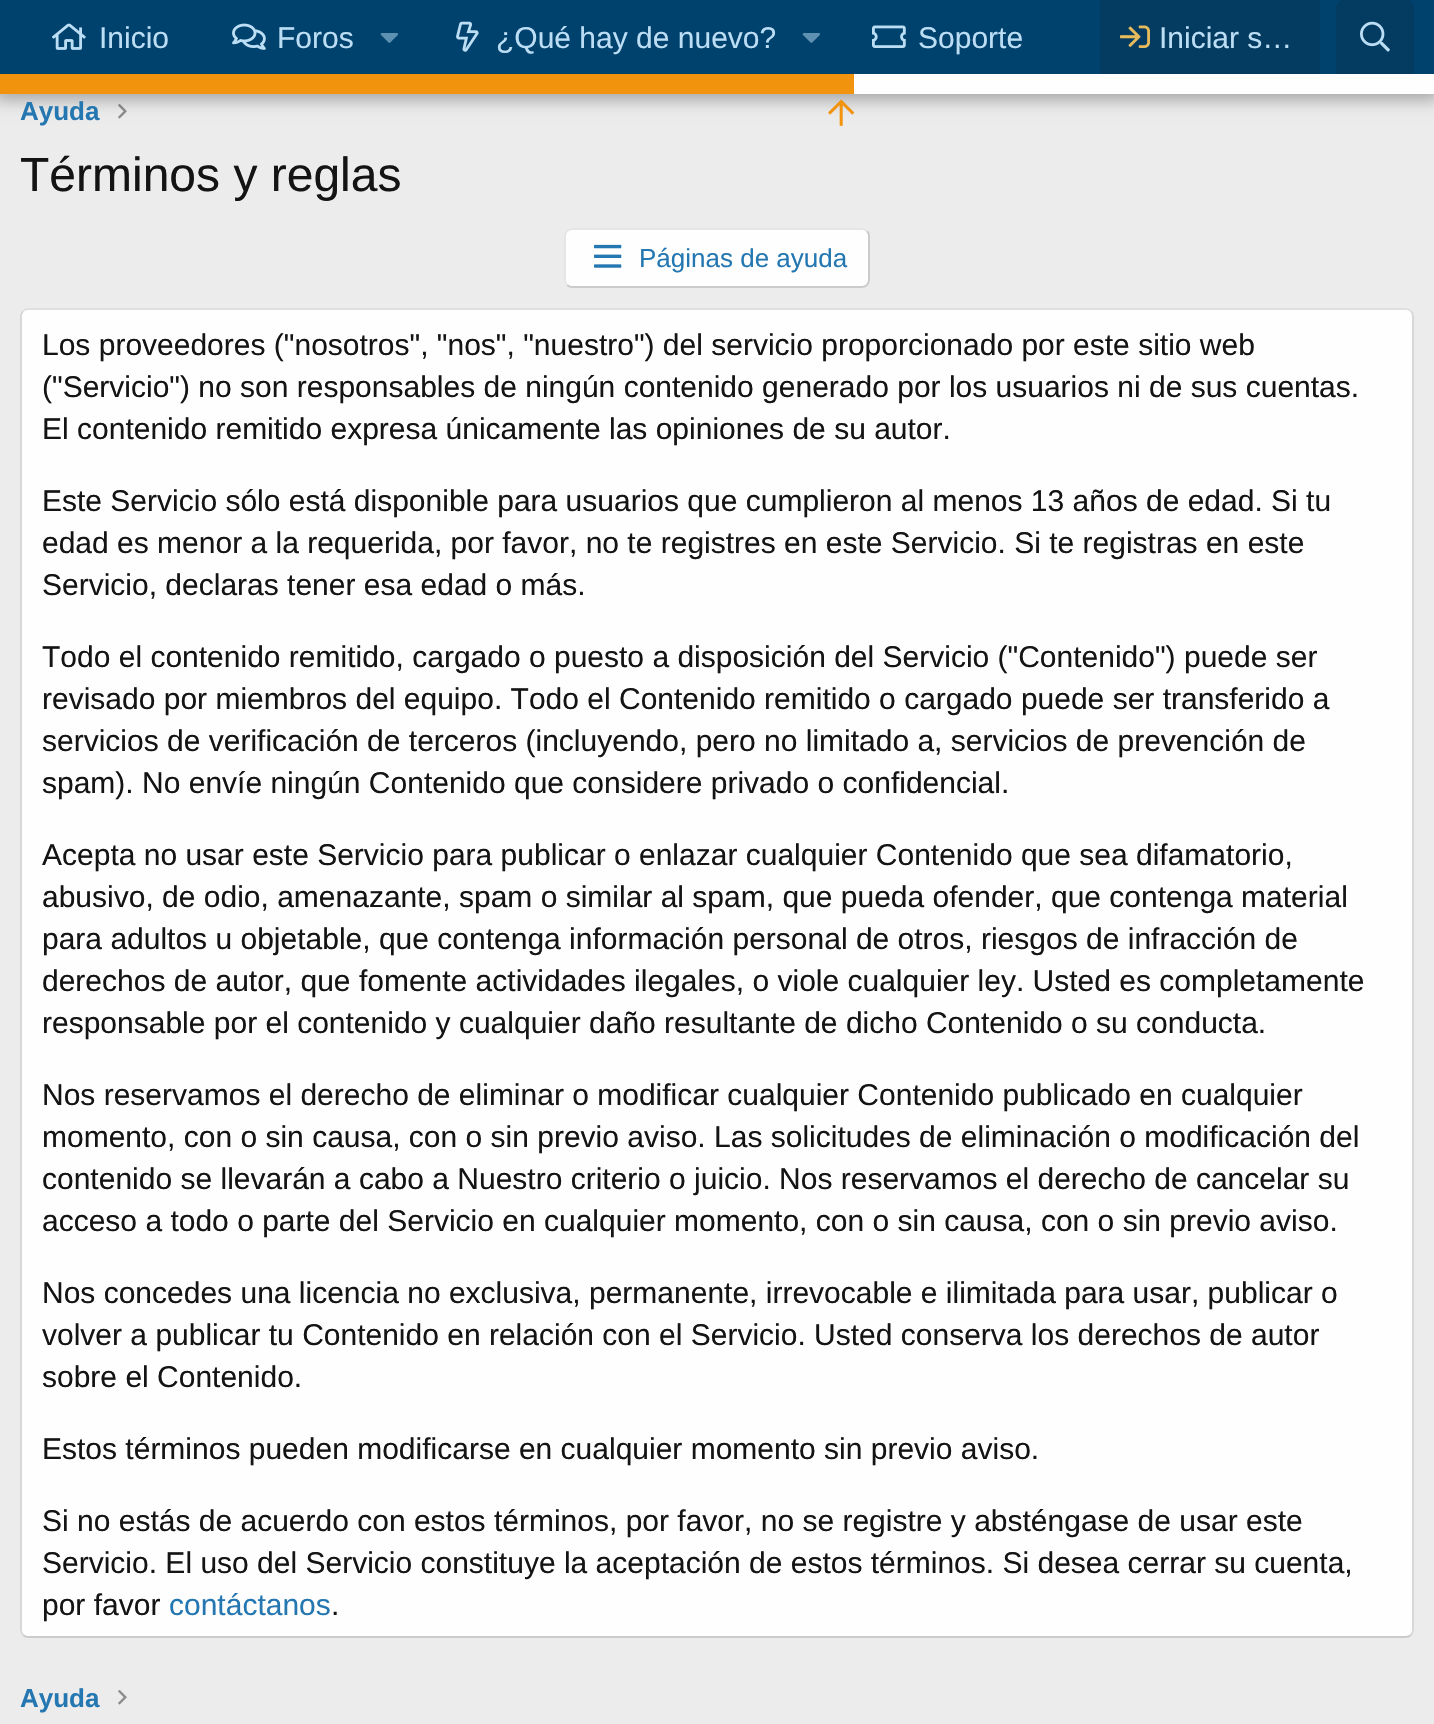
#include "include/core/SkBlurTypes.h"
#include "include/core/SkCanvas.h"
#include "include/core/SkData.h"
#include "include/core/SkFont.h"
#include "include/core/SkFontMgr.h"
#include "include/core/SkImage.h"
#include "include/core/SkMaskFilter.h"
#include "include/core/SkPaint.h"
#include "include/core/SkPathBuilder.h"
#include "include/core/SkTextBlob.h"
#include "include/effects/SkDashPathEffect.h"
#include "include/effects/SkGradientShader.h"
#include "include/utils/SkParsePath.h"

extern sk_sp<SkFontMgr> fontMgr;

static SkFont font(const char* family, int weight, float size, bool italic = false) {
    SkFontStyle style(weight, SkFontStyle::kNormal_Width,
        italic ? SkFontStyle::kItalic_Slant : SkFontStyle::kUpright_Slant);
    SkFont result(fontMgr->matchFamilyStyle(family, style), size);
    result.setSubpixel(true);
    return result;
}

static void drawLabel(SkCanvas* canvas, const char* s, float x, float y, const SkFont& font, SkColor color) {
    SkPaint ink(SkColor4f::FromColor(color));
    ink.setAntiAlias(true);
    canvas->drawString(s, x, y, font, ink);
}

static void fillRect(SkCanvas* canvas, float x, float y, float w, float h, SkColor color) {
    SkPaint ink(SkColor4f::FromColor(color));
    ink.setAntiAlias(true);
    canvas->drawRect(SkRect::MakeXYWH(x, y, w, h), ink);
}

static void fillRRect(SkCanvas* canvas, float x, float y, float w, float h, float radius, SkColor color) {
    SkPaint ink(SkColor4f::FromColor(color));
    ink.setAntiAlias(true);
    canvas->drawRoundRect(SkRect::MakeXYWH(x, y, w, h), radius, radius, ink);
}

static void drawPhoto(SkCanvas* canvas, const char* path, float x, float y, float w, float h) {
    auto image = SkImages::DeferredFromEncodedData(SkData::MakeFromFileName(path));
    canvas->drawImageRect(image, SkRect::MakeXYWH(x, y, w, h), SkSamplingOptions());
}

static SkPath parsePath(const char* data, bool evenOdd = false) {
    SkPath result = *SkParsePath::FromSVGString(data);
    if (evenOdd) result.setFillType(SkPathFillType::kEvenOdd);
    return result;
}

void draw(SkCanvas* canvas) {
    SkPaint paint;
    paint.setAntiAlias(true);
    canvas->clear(0xFFECECEC);
    drawPhoto(canvas, "assets/img9.png", 118, 104, 9, 15);
    paint.setColor(0x4D000000);
    paint.setMaskFilter(SkMaskFilter::MakeBlur(kNormal_SkBlurStyle, 8));
    canvas->drawRect(SkRect::MakeXYWH(-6, -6, 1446, 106), paint);
    paint.setMaskFilter(nullptr);
    fillRect(canvas, 0, 0, 1434, 74, 0xFF00426E);
    drawPhoto(canvas, "assets/img1.png", 52, 23, 34, 27);
    SkFont font1 = font("Liberation Sans", 400, 30);
    drawLabel(canvas, "Inicio", 99, 48, font1, 0xFFBCDEF5);
    drawPhoto(canvas, "assets/img2.png", 232, 23, 34, 27);
    drawLabel(canvas, "Foros", 277, 48, font1, 0xFFBCDEF5);
    drawPhoto(canvas, "assets/img3.png", 380, 33, 18, 10);
    drawPhoto(canvas, "assets/img4.png", 456, 21, 23, 31);
    drawLabel(canvas, "¿Qué hay de nuevo?", 496, 48, font1, 0xFFBCDEF5);
    drawPhoto(canvas, "assets/img3.png", 802, 33, 18, 10);
    drawPhoto(canvas, "assets/img5.png", 872, 25, 34, 23);
    drawLabel(canvas, "Soporte", 918, 48, font1, 0xFFBCDEF5);
    fillRect(canvas, 1100, 0, 220, 74, 0xFF033B61);
    drawPhoto(canvas, "assets/img6.png", 1120, 25, 30, 23);
    drawLabel(canvas, "Iniciar s…", 1159, 48, font1, 0xFFBCDEF5);
    paint.setColor(0xFF033B61);
    canvas->drawPath(parsePath("M1344 0H1406C1410.5 0 1414 3.5 1414 8V74H1336V8C1336 3.5 1339.5 0 1344 0Z"), paint);
    drawPhoto(canvas, "assets/img7.png", 1360, 21, 30, 31);
    fillRect(canvas, 854, 74, 580, 20, 0xFFFEFEFE);
    fillRect(canvas, 0, 74, 854, 20, 0xFFF2930D);
    drawPhoto(canvas, "assets/img8.png", 828, 99, 26, 27);
    SkFont font2 = font("Liberation Sans", 700, 26);
    drawLabel(canvas, "Ayuda", 20, 120, font2, 0xFF2577B1);
    SkFont font3 = font("Liberation Sans", 400, 48);
    drawLabel(canvas, "Términos y reglas", 20, 191, font3, 0xFF141414);
    fillRRect(canvas, 564, 228, 306, 60, 8, 0xFFFEFEFE);
    paint.setStroke(true);
    paint.setStrokeWidth(2);
    paint.setColor(0xFFCBCBCB);
    canvas->drawPath(parsePath("M867 231C868.5 232.5 869 234 869 236V280C869 282 868.5 283.5 867 285C865.5 286.5 864 287 862 287H572C570 287 568.5 286.5 567 285"), paint);
    paint.setColor(0xFFE5E5E5);
    canvas->drawPath(parsePath("M567 285C565.5 283.5 565 282 565 280V236C565 234 565.5 232.5 567 231C568.5 229.5 570 229 572 229H862C864 229 865.5 229.5 867 231"), paint);
    drawPhoto(canvas, "assets/img10.png", 594, 244, 28, 24);
    SkFont font4 = font("Liberation Sans", 400, 26);
    drawLabel(canvas, "Páginas de ayuda", 639, 267, font4, 0xFF2577B1);
    fillRRect(canvas, 20, 308, 1394, 1330, 8, 0xFFFEFEFE);
    paint.setColor(0xFFDFDFDF);
    canvas->drawPath(parsePath("M23 311C24.5 309.5 26 309 28 309H1406C1408 309 1409.5 309.5 1411 311"), paint);
    paint.setColor(0xFFD8D8D8);
    canvas->drawPath(parsePath("M1411 311C1412.5 312.5 1413 314 1413 316V1630C1413 1632 1412.5 1633.5 1411 1635"), paint);
    paint.setColor(0xFFCBCBCB);
    canvas->drawPath(parsePath("M1411 1635C1409.5 1636.5 1408 1637 1406 1637H28C26 1637 24.5 1636.5 23 1635"), paint);
    paint.setColor(0xFFD8D8D8);
    canvas->drawPath(parsePath("M23 1635C21.5 1633.5 21 1632 21 1630V316C21 314 21.5 312.5 23 311"), paint);
    drawLabel(canvas, "Los proveedores (\"nosotros\", \"nos\", \"nuestro\") del servicio proporcionado por este sitio web", 42, 355, font1, 0xFF141414);
    drawLabel(canvas, "(\"Servicio\") no son responsables de ningún contenido generado por los usuarios ni de sus cuentas.", 42, 397, font1, 0xFF141414);
    drawLabel(canvas, "El contenido remitido expresa únicamente las opiniones de su autor.", 42, 439, font1, 0xFF141414);
    drawLabel(canvas, "Este Servicio sólo está disponible para usuarios que cumplieron al menos 13 años de edad. Si tu", 42, 511, font1, 0xFF141414);
    drawLabel(canvas, "edad es menor a la requerida, por favor, no te registres en este Servicio. Si te registras en este", 42, 553, font1, 0xFF141414);
    drawLabel(canvas, "Servicio, declaras tener esa edad o más.", 42, 595, font1, 0xFF141414);
    drawLabel(canvas, "Todo el contenido remitido, cargado o puesto a disposición del Servicio (\"Contenido\") puede ser", 42, 667, font1, 0xFF141414);
    drawLabel(canvas, "revisado por miembros del equipo. Todo el Contenido remitido o cargado puede ser transferido a", 42, 709, font1, 0xFF141414);
    drawLabel(canvas, "servicios de verificación de terceros (incluyendo, pero no limitado a, servicios de prevención de", 42, 751, font1, 0xFF141414);
    drawLabel(canvas, "spam). No envíe ningún Contenido que considere privado o confidencial.", 42, 793, font1, 0xFF141414);
    drawLabel(canvas, "Acepta no usar este Servicio para publicar o enlazar cualquier Contenido que sea difamatorio,", 42, 865, font1, 0xFF141414);
    drawLabel(canvas, "abusivo, de odio, amenazante, spam o similar al spam, que pueda ofender, que contenga material", 42, 907, font1, 0xFF141414);
    drawLabel(canvas, "para adultos u objetable, que contenga información personal de otros, riesgos de infracción de", 42, 949, font1, 0xFF141414);
    drawLabel(canvas, "derechos de autor, que fomente actividades ilegales, o viole cualquier ley. Usted es completamente", 42, 991, font1, 0xFF141414);
    drawLabel(canvas, "responsable por el contenido y cualquier daño resultante de dicho Contenido o su conducta.", 42, 1033, font1, 0xFF141414);
    drawLabel(canvas, "Nos reservamos el derecho de eliminar o modificar cualquier Contenido publicado en cualquier", 42, 1105, font1, 0xFF141414);
    drawLabel(canvas, "momento, con o sin causa, con o sin previo aviso. Las solicitudes de eliminación o modificación del", 42, 1147, font1, 0xFF141414);
    drawLabel(canvas, "contenido se llevarán a cabo a Nuestro criterio o juicio. Nos reservamos el derecho de cancelar su", 42, 1189, font1, 0xFF141414);
    drawLabel(canvas, "acceso a todo o parte del Servicio en cualquier momento, con o sin causa, con o sin previo aviso.", 42, 1231, font1, 0xFF141414);
    drawLabel(canvas, "Nos concedes una licencia no exclusiva, permanente, irrevocable e ilimitada para usar, publicar o", 42, 1303, font1, 0xFF141414);
    drawLabel(canvas, "volver a publicar tu Contenido en relación con el Servicio. Usted conserva los derechos de autor", 42, 1345, font1, 0xFF141414);
    drawLabel(canvas, "sobre el Contenido.", 42, 1387, font1, 0xFF141414);
    drawLabel(canvas, "Estos términos pueden modificarse en cualquier momento sin previo aviso.", 42, 1459, font1, 0xFF141414);
    drawLabel(canvas, "Si no estás de acuerdo con estos términos, por favor, no se registre y absténgase de usar este", 42, 1531, font1, 0xFF141414);
    drawLabel(canvas, "Servicio. El uso del Servicio constituye la aceptación de estos términos. Si desea cerrar su cuenta,", 42, 1573, font1, 0xFF141414);
    drawLabel(canvas, "por favor", 42, 1615, font1, 0xFF141414);
    drawLabel(canvas, "contáctanos", 169, 1615, font1, 0xFF2577B1);
    drawLabel(canvas, ".", 331, 1615, font1, 0xFF141414);
    drawLabel(canvas, "Ayuda", 20, 1707, font2, 0xFF2577B1);
    drawPhoto(canvas, "assets/img9.png", 118, 1690, 9, 15);
}
